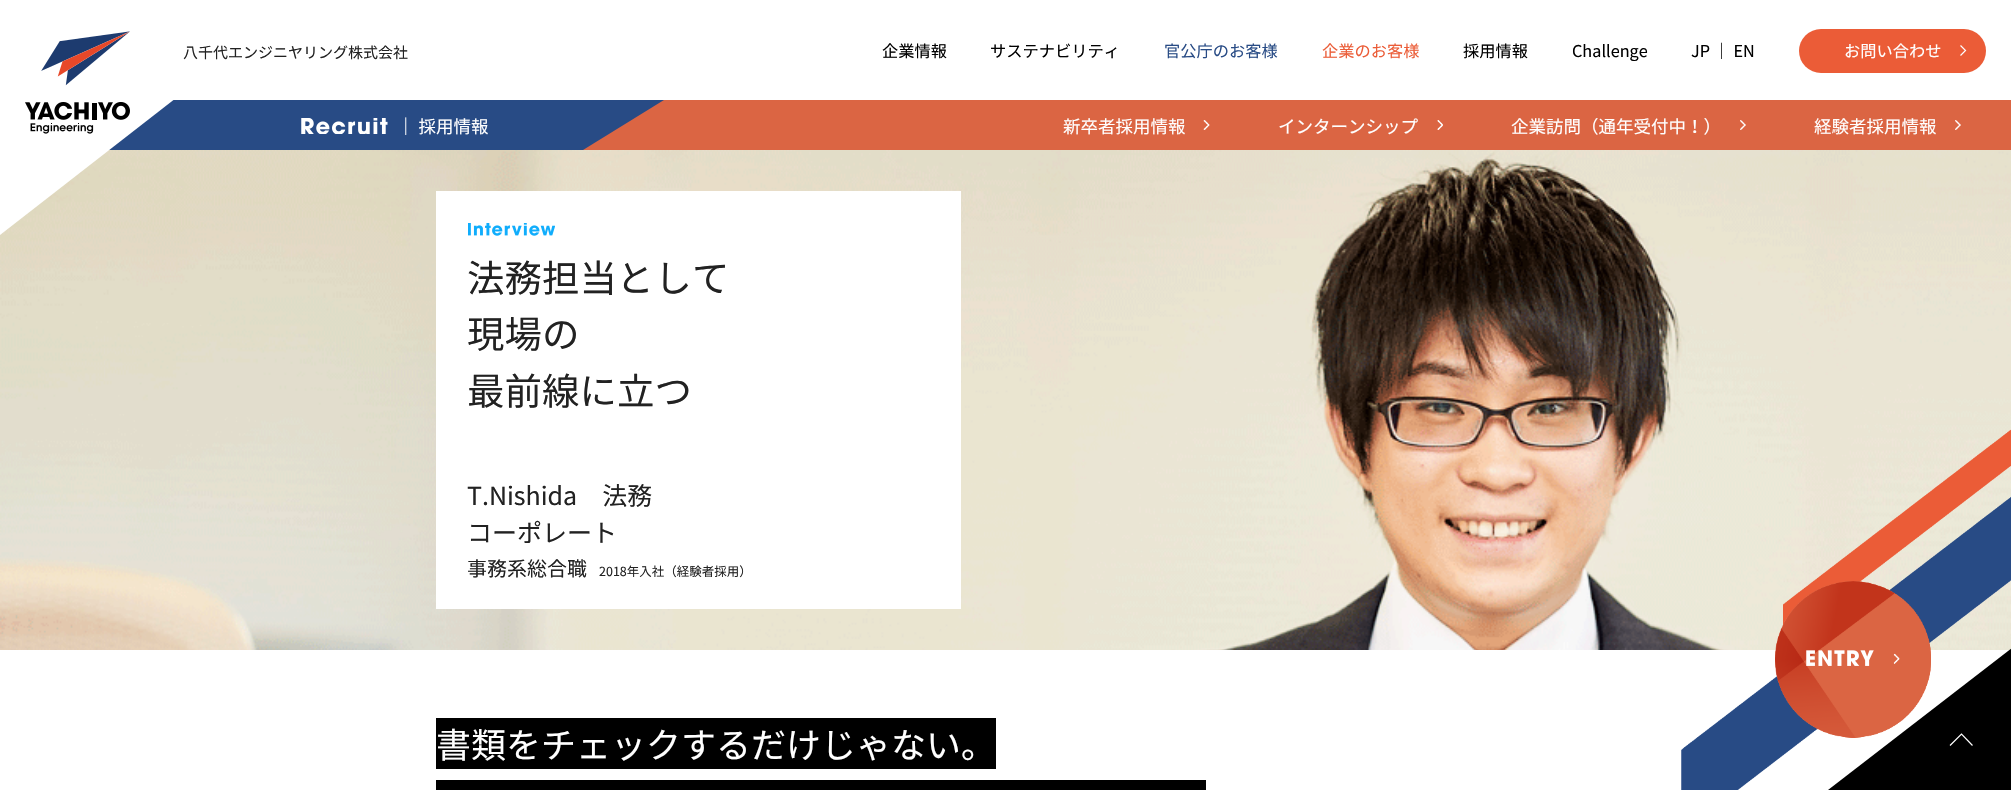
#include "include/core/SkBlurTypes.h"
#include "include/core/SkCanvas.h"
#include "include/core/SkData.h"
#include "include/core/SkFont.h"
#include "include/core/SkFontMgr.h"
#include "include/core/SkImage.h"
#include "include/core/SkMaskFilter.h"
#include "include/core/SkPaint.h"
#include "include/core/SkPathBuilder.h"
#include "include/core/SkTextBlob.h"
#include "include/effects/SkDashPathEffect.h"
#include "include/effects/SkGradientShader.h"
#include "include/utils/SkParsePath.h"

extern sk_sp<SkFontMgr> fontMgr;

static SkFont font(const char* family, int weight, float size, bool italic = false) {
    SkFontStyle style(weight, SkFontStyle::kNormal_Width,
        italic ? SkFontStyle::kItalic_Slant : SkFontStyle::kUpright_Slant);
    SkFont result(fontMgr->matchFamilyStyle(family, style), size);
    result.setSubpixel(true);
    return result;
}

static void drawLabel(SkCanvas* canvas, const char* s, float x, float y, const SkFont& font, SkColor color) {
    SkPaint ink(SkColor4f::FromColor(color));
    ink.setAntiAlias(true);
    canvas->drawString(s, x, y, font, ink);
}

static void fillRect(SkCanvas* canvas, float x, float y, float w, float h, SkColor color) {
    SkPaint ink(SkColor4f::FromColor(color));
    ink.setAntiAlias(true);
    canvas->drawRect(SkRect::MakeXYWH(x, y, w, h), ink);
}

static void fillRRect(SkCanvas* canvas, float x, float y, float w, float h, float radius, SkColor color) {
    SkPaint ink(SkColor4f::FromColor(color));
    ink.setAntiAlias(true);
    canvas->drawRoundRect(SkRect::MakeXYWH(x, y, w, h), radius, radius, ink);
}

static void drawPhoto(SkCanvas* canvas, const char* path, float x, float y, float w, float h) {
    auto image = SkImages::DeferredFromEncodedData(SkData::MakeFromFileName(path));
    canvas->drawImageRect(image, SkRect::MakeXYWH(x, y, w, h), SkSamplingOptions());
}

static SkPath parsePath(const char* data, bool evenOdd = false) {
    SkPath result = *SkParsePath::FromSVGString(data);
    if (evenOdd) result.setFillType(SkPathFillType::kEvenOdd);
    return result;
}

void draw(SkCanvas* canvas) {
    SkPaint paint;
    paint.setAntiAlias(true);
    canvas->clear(0xFFFFFFFF);
    fillRect(canvas, 109, 100, 555, 50, 0xFF284B85);
    drawPhoto(canvas, "assets/img2.png", 301, 118, 87, 16);
    drawPhoto(canvas, "assets/img6.png", 0, 150, 2011, 500);
    paint.setColor(0xFFFFFFFF);
    canvas->drawPath(parsePath("M0 0H302L0 235Z"), paint);
    drawPhoto(canvas, "assets/img1.png", 25, 31, 105, 103);
    SkFont font1 = font("Noto Sans JP", 400, 15);
    drawLabel(canvas, "八千代エンジニヤリング株式会社", 183, 58, font1, 0xFF222222);
    SkFont font2 = font("Noto Sans JP", 400, 16.25f);
    drawLabel(canvas, "企業情報", 882, 57, font2, 0xFF000000);
    drawLabel(canvas, "サステナビリティ", 990, 57, font2, 0xFF000000);
    drawLabel(canvas, "官公庁のお客様", 1164, 57, font2, 0xFF284B85);
    drawLabel(canvas, "企業のお客様", 1322, 57, font2, 0xFFEB5C37);
    drawLabel(canvas, "採用情報", 1463, 57, font2, 0xFF000000);
    drawLabel(canvas, "Challenge", 1572, 57, font2, 0xFF000000);
    drawLabel(canvas, "JP ｜ EN", 1691, 57, font2, 0xFF000000);
    fillRRect(canvas, 1799, 29, 187, 44, 22, 0xFFEB5C37);
    drawLabel(canvas, "お問い合わせ", 1844, 57, font2, 0xFFFFFFFF);
    paint.setStroke(true);
    paint.setStrokeWidth(1.2f);
    canvas->drawPath(parsePath("M1960.5 55.5L1965.5 50.5L1960.5 45.5"), paint);
    SkFont font3 = font("Noto Sans JP", 400, 17.5f);
    drawLabel(canvas, "｜ 採用情報", 397, 133, font3, 0xFFFFFFFF);
    paint.setStroke(false);
    paint.setColor(0xFFDB6543);
    canvas->drawPath(parsePath("M664 100L583 150H2011V100Z"), paint);
    drawLabel(canvas, "新卒者採用情報", 1063, 133, font3, 0xFFFFFFFF);
    drawPhoto(canvas, "assets/img3.png", 1203, 120, 7, 10);
    drawLabel(canvas, "インターンシップ", 1278, 133, font3, 0xFFFFFFFF);
    drawPhoto(canvas, "assets/img4.png", 1437, 120, 6, 10);
    drawLabel(canvas, "企業訪問（通年受付中！）", 1511, 133, font3, 0xFFFFFFFF);
    drawPhoto(canvas, "assets/img5.png", 1740, 120, 6, 10);
    drawLabel(canvas, "経験者採用情報", 1814, 133, font3, 0xFFFFFFFF);
    drawPhoto(canvas, "assets/img5.png", 1955, 120, 6, 10);
    fillRect(canvas, 436, 191, 525, 418, 0xFFFFFFFF);
    drawPhoto(canvas, "assets/img7.png", 468, 223, 87, 13);
    SkFont font4 = font("Noto Sans JP", 400, 37.5f);
    drawLabel(canvas, "法務担当として", 467, 292, font4, 0xFF222222);
    drawLabel(canvas, "現場の", 467, 348, font4, 0xFF222222);
    drawLabel(canvas, "最前線に立つ", 467, 405, font4, 0xFF222222);
    SkFont font5 = font("Noto Sans JP", 400, 25);
    drawLabel(canvas, "T.Nishida　法務", 467, 505, font5, 0xFF222222);
    drawLabel(canvas, "コーポレート", 467, 542, font5, 0xFF222222);
    SkFont font6 = font("Noto Sans JP", 400, 20);
    drawLabel(canvas, "事務系総合職", 467, 576, font6, 0xFF222222);
    SkFont font7 = font("Noto Sans JP", 400, 12.5f);
    drawLabel(canvas, "2018年入社（経験者採用）", 599, 576, font7, 0xFF222222);
    drawPhoto(canvas, "assets/img8.png", 1681, 429, 330, 361);
    fillRect(canvas, 436, 718, 560, 51, 0xFF000000);
    SkFont font8 = font("Noto Sans JP", 400, 35);
    drawLabel(canvas, "書類をチェックするだけじゃない。", 436, 758, font8, 0xFFFFFFFF);
    fillRect(canvas, 436, 780, 770, 10, 0xFF000000);
    paint.setColor(0xFF000000);
    canvas->drawPath(parsePath("M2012 790V648L1828 790Z"), paint);
    drawPhoto(canvas, "assets/img9.png", 1775, 581, 156, 157);
    drawPhoto(canvas, "assets/img10.png", 1893, 653, 7, 11);
    drawPhoto(canvas, "assets/img11.png", 1806, 650, 68, 16);
    paint.setStroke(true);
    paint.setColor(0xFFFFFFFF);
    canvas->drawPath(parsePath("M1972.5 745.5L1961.5 734L1950 745.5"), paint);
}
